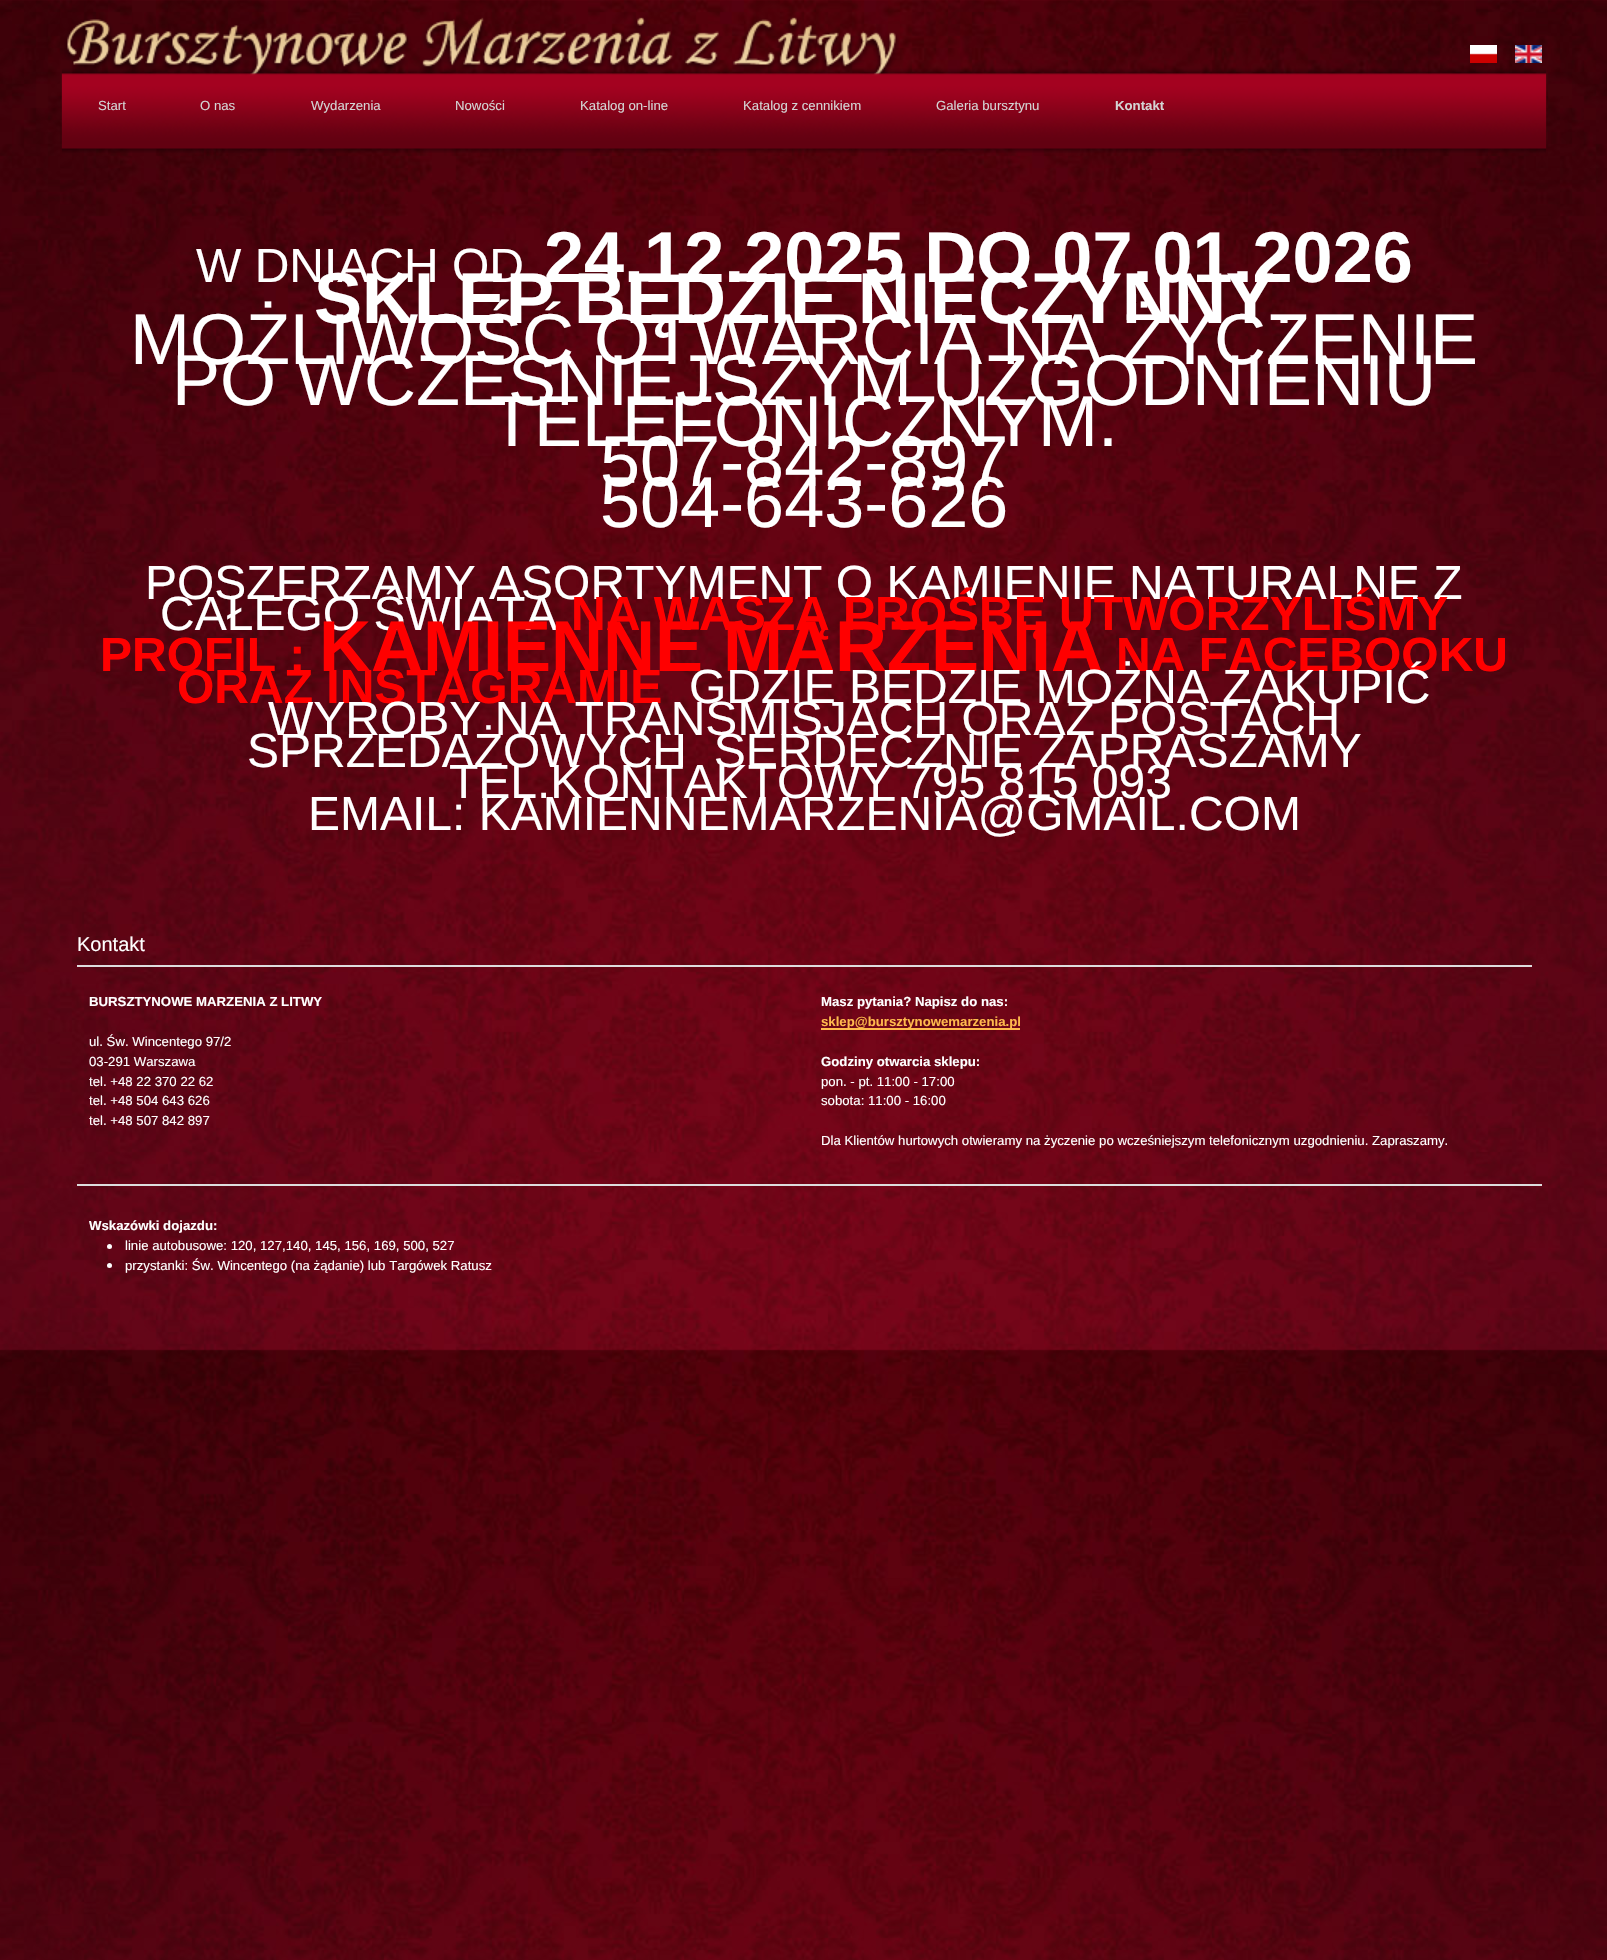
#include "include/core/SkBlurTypes.h"
#include "include/core/SkCanvas.h"
#include "include/core/SkData.h"
#include "include/core/SkFont.h"
#include "include/core/SkFontMgr.h"
#include "include/core/SkImage.h"
#include "include/core/SkMaskFilter.h"
#include "include/core/SkPaint.h"
#include "include/core/SkPathBuilder.h"
#include "include/core/SkTextBlob.h"
#include "include/effects/SkDashPathEffect.h"
#include "include/effects/SkGradientShader.h"
#include "include/utils/SkParsePath.h"

extern sk_sp<SkFontMgr> fontMgr;

static SkFont font(const char* family, int weight, float size, bool italic = false) {
    SkFontStyle style(weight, SkFontStyle::kNormal_Width,
        italic ? SkFontStyle::kItalic_Slant : SkFontStyle::kUpright_Slant);
    SkFont result(fontMgr->matchFamilyStyle(family, style), size);
    result.setSubpixel(true);
    return result;
}

static void drawLabel(SkCanvas* canvas, const char* s, float x, float y, const SkFont& font, SkColor color) {
    SkPaint ink(SkColor4f::FromColor(color));
    ink.setAntiAlias(true);
    canvas->drawString(s, x, y, font, ink);
}

static void fillRect(SkCanvas* canvas, float x, float y, float w, float h, SkColor color) {
    SkPaint ink(SkColor4f::FromColor(color));
    ink.setAntiAlias(true);
    canvas->drawRect(SkRect::MakeXYWH(x, y, w, h), ink);
}

static void drawPhoto(SkCanvas* canvas, const char* path, float x, float y, float w, float h) {
    auto image = SkImages::DeferredFromEncodedData(SkData::MakeFromFileName(path));
    canvas->drawImageRect(image, SkRect::MakeXYWH(x, y, w, h), SkSamplingOptions());
}

void draw(SkCanvas* canvas) {
    SkPaint paint;
    paint.setAntiAlias(true);
    canvas->clear(0xFFFFFFFF);
    drawPhoto(canvas, "assets/img1.png", 0, 0, 1607, 1960);
    drawPhoto(canvas, "assets/img2.png", 1470, 45, 27, 18);
    drawPhoto(canvas, "assets/img3.png", 1515, 45, 27, 18);
    drawPhoto(canvas, "assets/img4.png", 64, 17, 835, 59);
    drawPhoto(canvas, "assets/img5.png", 61, 68, 1486, 85);
    SkFont font1 = font("Liberation Sans", 400, 13.2f);
    drawLabel(canvas, "Start", 98, 110, font1, 0xFFD4D4D4);
    drawLabel(canvas, "O nas", 200, 110, font1, 0xFFD4D4D4);
    drawLabel(canvas, "Wydarzenia", 311, 110, font1, 0xFFD4D4D4);
    drawLabel(canvas, "Nowości", 455, 110, font1, 0xFFD4D4D4);
    drawLabel(canvas, "Katalog on-line", 580, 110, font1, 0xFFD4D4D4);
    drawLabel(canvas, "Katalog z cennikiem", 743, 110, font1, 0xFFD4D4D4);
    drawLabel(canvas, "Galeria bursztynu", 936, 110, font1, 0xFFD4D4D4);
    SkFont font2 = font("Liberation Sans", 700, 13.2f);
    drawLabel(canvas, "Kontakt", 1115, 110, font2, 0xFFD4D4D4);
    SkFont font3 = font("Liberation Sans", 400, 48);
    drawLabel(canvas, "W DNIACH OD", 196, 282, font3, 0xFFFFFFFF);
    SkFont font4 = font("Liberation Sans", 700, 72);
    drawLabel(canvas, "24.12.2025 DO 07.01.2026", 544, 282, font4, 0xFFFFFFFF);
    drawLabel(canvas, "SKLEP BĘDZIE NIECZYNNY", 314, 323, font4, 0xFFFFFFFF);
    SkFont font5 = font("Liberation Sans", 400, 72);
    drawLabel(canvas, ".", 1274, 323, font5, 0xFFFFFFFF);
    drawLabel(canvas, "MOŻLIWOŚĆ OTWARCIA NA ŻYCZENIE", 130, 364, font5, 0xFFFFFFFF);
    drawLabel(canvas, "PO WCZESNIEJSZYM UZGODNIENIU", 172, 405, font5, 0xFFFFFFFF);
    drawLabel(canvas, "TELEFONICZNYM.", 490, 446, font5, 0xFFFFFFFF);
    drawLabel(canvas, "507-842-897", 600, 486, font5, 0xFFFFFFFF);
    drawLabel(canvas, "504-643-626", 600, 527, font5, 0xFFFFFFFF);
    drawLabel(canvas, "POSZERZAMY ASORTYMENT O KAMIENIE NATURALNE Z", 145, 599, font3, 0xFFFFFFFF);
    drawLabel(canvas, "CAŁEGO ŚWIATA.", 160, 630, font3, 0xFFFFFFFF);
    SkFont font6 = font("Liberation Sans", 700, 48);
    drawLabel(canvas, "NA WASZĄ PROŚBĘ UTWORZYLIŚMY", 571, 630, font6, 0xFFFF0000);
    drawLabel(canvas, "PROFIL :", 100, 671, font6, 0xFFFF0000);
    drawLabel(canvas, "KAMIENNE MARZENIA", 319, 671, font4, 0xFFFF0000);
    drawLabel(canvas, "NA FACEBOOKU", 1116, 671, font6, 0xFFFF0000);
    drawLabel(canvas, "ORAZ INSTAGRAMIE", 177, 703, font6, 0xFFFF0000);
    drawLabel(canvas, "GDZIE BEDZIE MOŻNA ZAKUPIĆ", 689, 703, font3, 0xFFFFFFFF);
    drawLabel(canvas, "WYROBY NA TRANSMISJACH ORAZ POSTACH", 268, 735, font3, 0xFFFFFFFF);
    drawLabel(canvas, "SPRZEDAŻOWYCH  SERDECZNIE ZAPRASZAMY", 247, 767, font3, 0xFFFFFFFF);
    drawLabel(canvas, "TEL.KONTAKTOWY 795 815 093", 449, 798, font3, 0xFFFFFFFF);
    drawLabel(canvas, "EMAIL: KAMIENNEMARZENIA@GMAIL.COM", 308, 830, font3, 0xFFFFFFFF);
    fillRect(canvas, 77, 965, 1455, 2, 0xFFDDDDDD);
    SkFont font7 = font("Liberation Sans", 400, 20);
    drawLabel(canvas, "Kontakt", 77, 951, font7, 0xFFFFFFFF);
    drawLabel(canvas, "BURSZTYNOWE MARZENIA Z LITWY", 89, 1006, font2, 0xFFFFFFFF);
    drawLabel(canvas, "ul. Św. Wincentego 97/2", 89, 1046, font1, 0xFFFFFFFF);
    drawLabel(canvas, "03-291 Warszawa", 89, 1066, font1, 0xFFFFFFFF);
    drawLabel(canvas, "tel. +48 22 370 22 62", 89, 1086, font1, 0xFFFFFFFF);
    drawLabel(canvas, "tel. +48 504 643 626", 89, 1105, font1, 0xFFFFFFFF);
    drawLabel(canvas, "tel. +48 507 842 897", 89, 1125, font1, 0xFFFFFFFF);
    drawLabel(canvas, "Masz pytania? Napisz do nas:", 821, 1006, font2, 0xFFFFFFFF);
    fillRect(canvas, 821, 1028, 199, 2, 0xFFFFBA4D);
    drawLabel(canvas, "sklep@bursztynowemarzenia.pl", 821, 1026, font2, 0xFFFFBA4D);
    drawLabel(canvas, "Godziny otwarcia sklepu:", 821, 1066, font2, 0xFFFFFFFF);
    drawLabel(canvas, "pon. - pt. 11:00 - 17:00", 821, 1086, font1, 0xFFFFFFFF);
    drawLabel(canvas, "sobota: 11:00 - 16:00", 821, 1105, font1, 0xFFFFFFFF);
    drawLabel(canvas, "Dla Klientów hurtowych otwieramy na życzenie po wcześniejszym telefonicznym uzgodnieniu. Zapraszamy.", 821, 1145, font1, 0xFFFFFFFF);
    fillRect(canvas, 77, 1184, 1465, 2, 0xFFDDDDDD);
    drawLabel(canvas, "Wskazówki dojazdu:", 89, 1230, font2, 0xFFFFFFFF);
    paint.setColor(0xFFFFFFFF);
    canvas->drawCircle(109.5f, 1246.5f, 2.5f, paint);
    drawLabel(canvas, "linie autobusowe: 120, 127,140, 145, 156, 169, 500, 527", 125, 1250, font1, 0xFFFFFFFF);
    canvas->drawCircle(109.5f, 1265.5f, 2.5f, paint);
    drawLabel(canvas, "przystanki: Św. Wincentego (na żądanie) lub Targówek Ratusz", 125, 1270, font1, 0xFFFFFFFF);
}
